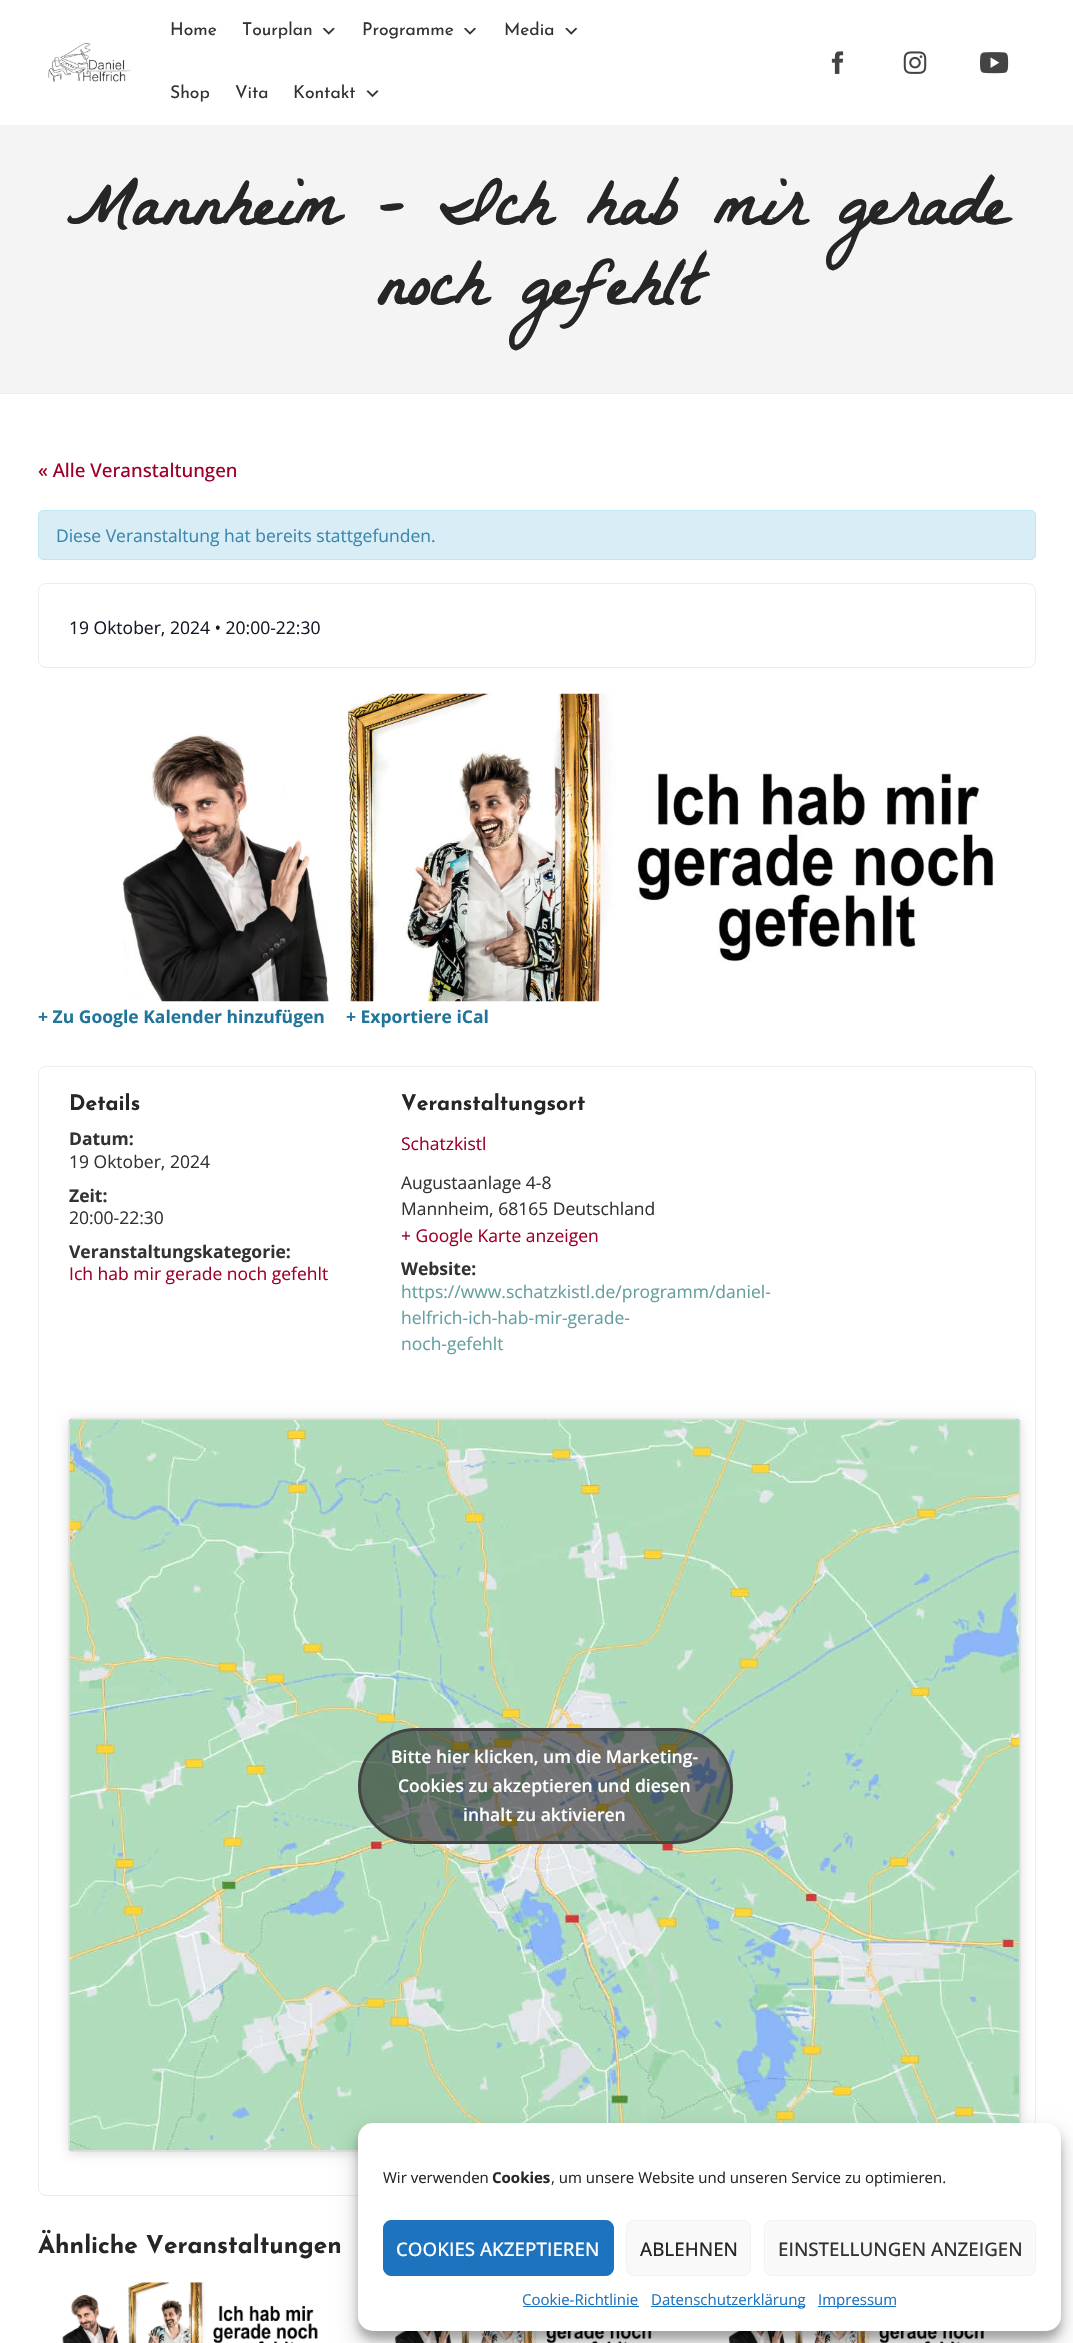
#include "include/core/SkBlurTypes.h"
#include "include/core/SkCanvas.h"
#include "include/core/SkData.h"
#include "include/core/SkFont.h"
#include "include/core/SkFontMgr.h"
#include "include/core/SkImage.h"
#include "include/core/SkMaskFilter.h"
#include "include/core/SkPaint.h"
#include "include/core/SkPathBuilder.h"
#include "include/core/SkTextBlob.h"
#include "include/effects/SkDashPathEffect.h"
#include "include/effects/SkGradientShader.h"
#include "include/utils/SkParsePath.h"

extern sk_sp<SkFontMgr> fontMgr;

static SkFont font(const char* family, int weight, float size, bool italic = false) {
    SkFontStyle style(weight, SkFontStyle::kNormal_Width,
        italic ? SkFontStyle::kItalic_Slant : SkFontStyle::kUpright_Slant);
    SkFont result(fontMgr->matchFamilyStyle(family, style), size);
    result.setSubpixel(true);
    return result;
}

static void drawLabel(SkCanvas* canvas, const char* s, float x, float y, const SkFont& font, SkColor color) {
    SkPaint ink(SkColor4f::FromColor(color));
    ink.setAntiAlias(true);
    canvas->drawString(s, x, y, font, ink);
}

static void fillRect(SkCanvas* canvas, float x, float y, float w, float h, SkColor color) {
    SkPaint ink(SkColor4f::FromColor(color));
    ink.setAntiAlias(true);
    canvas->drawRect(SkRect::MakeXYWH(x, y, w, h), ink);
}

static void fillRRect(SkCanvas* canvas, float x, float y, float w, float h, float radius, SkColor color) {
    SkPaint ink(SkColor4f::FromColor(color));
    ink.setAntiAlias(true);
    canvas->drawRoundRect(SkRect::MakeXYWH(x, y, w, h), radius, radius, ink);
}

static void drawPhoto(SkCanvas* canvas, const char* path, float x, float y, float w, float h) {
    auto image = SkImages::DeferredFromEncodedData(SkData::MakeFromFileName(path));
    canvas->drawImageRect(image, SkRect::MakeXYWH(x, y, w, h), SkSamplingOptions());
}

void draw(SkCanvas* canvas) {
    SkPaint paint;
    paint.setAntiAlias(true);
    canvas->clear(0xFFFFFFFF);
    drawPhoto(canvas, "assets/img1.png", 48, 42, 83, 40);
    SkFont font1 = font("Josefin Sans", 400, 17.5f);
    drawLabel(canvas, "Home", 170, 35, font1, 0xFF333333);
    drawLabel(canvas, "Tourplan", 242, 35, font1, 0xFF333333);
    drawPhoto(canvas, "assets/img2.png", 322, 27, 13, 8);
    drawLabel(canvas, "Programme", 362, 35, font1, 0xFF333333);
    drawPhoto(canvas, "assets/img3.png", 464, 27, 12, 8);
    drawLabel(canvas, "Media", 504, 35, font1, 0xFF333333);
    drawPhoto(canvas, "assets/img4.png", 565, 27, 13, 8);
    drawLabel(canvas, "Shop", 170, 98, font1, 0xFF333333);
    drawLabel(canvas, "Vita", 235, 98, font1, 0xFF333333);
    drawLabel(canvas, "Kontakt", 293, 98, font1, 0xFF333333);
    drawPhoto(canvas, "assets/img5.png", 366, 90, 13, 8);
    drawPhoto(canvas, "assets/img6.png", 831, 51, 13, 23);
    drawPhoto(canvas, "assets/img7.png", 903, 51, 24, 23);
    drawPhoto(canvas, "assets/img8.png", 980, 52, 29, 22);
    fillRect(canvas, 0, 125, 1073, 268, 0xFFF4F4F4);
    fillRect(canvas, 0, 393, 1073, 1, 0xFFEDEDED);
    SkFont font2 = font("La Belle Aurore", 700, 70);
    drawLabel(canvas, "Mannheim – Ich hab mir gerade", 66, 225, font2, 0xFF262626);
    drawLabel(canvas, "noch gefehlt", 376, 305, font2, 0xFF262626);
    SkFont font3 = font("Open Sans", 500, 18.75f);
    drawLabel(canvas, "« Alle Veranstaltungen", 38, 477, font3, 0xFF9E0027);
    paint.setColor(0xFFD9EDF7);
    canvas->drawRoundRect(SkRect::MakeXYWH(38.5f, 510.5f, 997, 49), 4.5f, 4.5f, paint);
    paint.setStroke(true);
    paint.setStrokeWidth(1);
    paint.setColor(0xFFBCE8F1);
    canvas->drawRoundRect(SkRect::MakeXYWH(38.5f, 510.5f, 997, 49), 4.5f, 4.5f, paint);
    SkFont font4 = font("Open Sans", 400, 17.5f);
    drawLabel(canvas, "Diese Veranstaltung hat bereits stattgefunden.", 56, 542, font4, 0xFF3A87AD);
    paint.setColor(0xFFEDEDED);
    canvas->drawRoundRect(SkRect::MakeXYWH(38.5f, 583.5f, 997, 84), 7.5f, 7.5f, paint);
    drawLabel(canvas, "19 Oktober, 2024 • 20:00-22:30", 69, 634, font4, 0xFF141827);
    drawPhoto(canvas, "assets/img9.png", 122, 693, 873, 309);
    SkFont font5 = font("Open Sans", 700, 17.5f);
    drawLabel(canvas, "+ Zu Google Kalender hinzufügen", 38, 1023, font5, 0xFF21759B);
    drawLabel(canvas, "+ Exportiere iCal", 346, 1023, font5, 0xFF21759B);
    canvas->drawRoundRect(SkRect::MakeXYWH(38.5f, 1066.5f, 997, 1129), 7.5f, 7.5f, paint);
    SkFont font6 = font("Josefin Sans", 700, 21.25f);
    drawLabel(canvas, "Details", 69, 1110, font6, 0xFF262626);
    drawLabel(canvas, "Datum:", 69, 1145, font5, 0xFF333333);
    drawLabel(canvas, "19 Oktober, 2024", 69, 1168, font4, 0xFF333333);
    drawLabel(canvas, "Zeit:", 69, 1202, font5, 0xFF333333);
    drawLabel(canvas, "20:00-22:30", 69, 1224, font4, 0xFF333333);
    drawLabel(canvas, "Veranstaltungskategorie:", 69, 1258, font5, 0xFF333333);
    drawLabel(canvas, "Ich hab mir gerade noch gefehlt", 69, 1280, font4, 0xFF9E0027);
    drawLabel(canvas, "Veranstaltungsort", 401, 1110, font6, 0xFF262626);
    drawLabel(canvas, "Schatzkistl", 401, 1150, font4, 0xFF9E0027);
    drawLabel(canvas, "Augustaanlage 4-8", 401, 1189, font4, 0xFF333333);
    drawLabel(canvas, "Mannheim, 68165 Deutschland", 401, 1215, font4, 0xFF333333);
    drawLabel(canvas, "+ Google Karte anzeigen", 401, 1242, font4, 0xFF9E0027);
    drawLabel(canvas, "Website:", 401, 1275, font5, 0xFF333333);
    drawLabel(canvas, "https://www.schatzkistl.de/programm/daniel-", 401, 1298, font4, 0xFF639FA0);
    drawLabel(canvas, "helfrich-ich-hab-mir-gerade-", 401, 1324, font4, 0xFF639FA0);
    drawLabel(canvas, "noch-gefehlt", 401, 1350, font4, 0xFF639FA0);
    paint.setStroke(false);
    paint.setColor(0x26000000);
    paint.setMaskFilter(SkMaskFilter::MakeBlur(kNormal_SkBlurStyle, 6));
    canvas->drawRoundRect(SkRect::MakeXYWH(69, 1420, 951, 733), 4, 4, paint);
    paint.setMaskFilter(nullptr);
    paint.setColor(0x80000000);
    paint.setMaskFilter(SkMaskFilter::MakeBlur(kNormal_SkBlurStyle, 0.5f));
    canvas->drawRoundRect(SkRect::MakeXYWH(69, 1419, 951, 732), 4, 4, paint);
    paint.setMaskFilter(nullptr);
    drawPhoto(canvas, "assets/img10.png", 70, 1420, 950, 730);
    paint.setStroke(true);
    paint.setColor(0xFFDDDDDD);
    canvas->drawRoundRect(SkRect::MakeXYWH(69.5f, 1419.5f, 950, 731), 3.5f, 3.5f, paint);
    paint.setStroke(false);
    paint.setColor(0x80000000);
    canvas->drawRoundRect(SkRect::MakeXYWH(359.5f, 1729.5f, 372, 113), 56.5f, 56.5f, paint);
    paint.setStroke(true);
    paint.setStrokeWidth(3);
    paint.setColor(0xFF444444);
    canvas->drawRoundRect(SkRect::MakeXYWH(359.5f, 1729.5f, 372, 113), 56.5f, 56.5f, paint);
    SkFont font7 = font("Open Sans", 600, 17.5f);
    drawLabel(canvas, "Bitte hier klicken, um die Marketing-", 391, 1763, font7, 0xFFFFFFFF);
    drawLabel(canvas, "Cookies zu akzeptieren und diesen", 398, 1792, font7, 0xFFFFFFFF);
    drawLabel(canvas, "inhalt zu aktivieren", 463, 1821, font7, 0xFFFFFFFF);
    SkFont font8 = font("Josefin Sans", 700, 24.5f);
    drawLabel(canvas, "Ähnliche Veranstaltungen", 38, 2253, font8, 0xFF262626);
    drawPhoto(canvas, "assets/img11.png", 62, 2282, 256, 61);
    drawPhoto(canvas, "assets/img12.png", 395, 2331, 257, 12);
    drawPhoto(canvas, "assets/img13.png", 728, 2331, 256, 12);
    paint.setStroke(false);
    paint.setColor(0x3B000000);
    paint.setMaskFilter(SkMaskFilter::MakeBlur(kNormal_SkBlurStyle, 4));
    canvas->drawRoundRect(SkRect::MakeXYWH(358, 2130, 703, 209), 15, 15, paint);
    paint.setMaskFilter(nullptr);
    paint.setColor(0x30000000);
    paint.setMaskFilter(SkMaskFilter::MakeBlur(kNormal_SkBlurStyle, 12.5f));
    canvas->drawRoundRect(SkRect::MakeXYWH(358, 2135, 703, 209), 15, 15, paint);
    paint.setMaskFilter(nullptr);
    fillRRect(canvas, 358, 2123, 703, 208, 15, 0xFFFFFFFF);
    SkFont font9 = font("Open Sans", 400, 15);
    drawLabel(canvas, "Wir verwenden", 383, 2183, font9, 0xFF262626);
    SkFont font10 = font("Open Sans", 700, 15);
    drawLabel(canvas, "Cookies", 492, 2183, font10, 0xFF262626);
    drawLabel(canvas, ", um unsere Website und unseren Service zu optimieren.", 551, 2183, font9, 0xFF262626);
    paint.setColor(0xFF1E73BE);
    canvas->drawRoundRect(SkRect::MakeXYWH(383.5f, 2220.5f, 230, 55), 7.5f, 7.5f, paint);
    paint.setStroke(true);
    paint.setStrokeWidth(1);
    canvas->drawRoundRect(SkRect::MakeXYWH(383.5f, 2220.5f, 230, 55), 7.5f, 7.5f, paint);
    drawLabel(canvas, "COOKIES AKZEPTIEREN", 396, 2256, font3, 0xFFFFFFFF);
    paint.setStroke(false);
    paint.setColor(0xFFF9F9F9);
    canvas->drawRoundRect(SkRect::MakeXYWH(626.5f, 2220.5f, 124, 55), 7.5f, 7.5f, paint);
    paint.setStroke(true);
    paint.setColor(0xFFF2F2F2);
    canvas->drawRoundRect(SkRect::MakeXYWH(626.5f, 2220.5f, 124, 55), 7.5f, 7.5f, paint);
    drawLabel(canvas, "ABLEHNEN", 640, 2256, font3, 0xFF262626);
    paint.setStroke(false);
    paint.setColor(0xFFF9F9F9);
    canvas->drawRoundRect(SkRect::MakeXYWH(764.5f, 2220.5f, 271, 55), 7.5f, 7.5f, paint);
    paint.setStroke(true);
    paint.setColor(0xFFF2F2F2);
    canvas->drawRoundRect(SkRect::MakeXYWH(764.5f, 2220.5f, 271, 55), 7.5f, 7.5f, paint);
    drawLabel(canvas, "EINSTELLUNGEN ANZEIGEN", 778, 2256, font3, 0xFF333333);
    drawLabel(canvas, "Cookie-Richtlinie", 522, 2305, font9, 0xFF1E73BE);
    fillRect(canvas, 523, 2306, 116, 1, 0xFF1E73BE);
    fillRect(canvas, 651, 2306, 154, 1, 0xFF1E73BE);
    drawLabel(canvas, "Datenschutzerklärung", 651, 2305, font9, 0xFF1E73BE);
    fillRect(canvas, 818, 2306, 78, 1, 0xFF1E73BE);
    drawLabel(canvas, "Impressum", 818, 2305, font9, 0xFF1E73BE);
}
